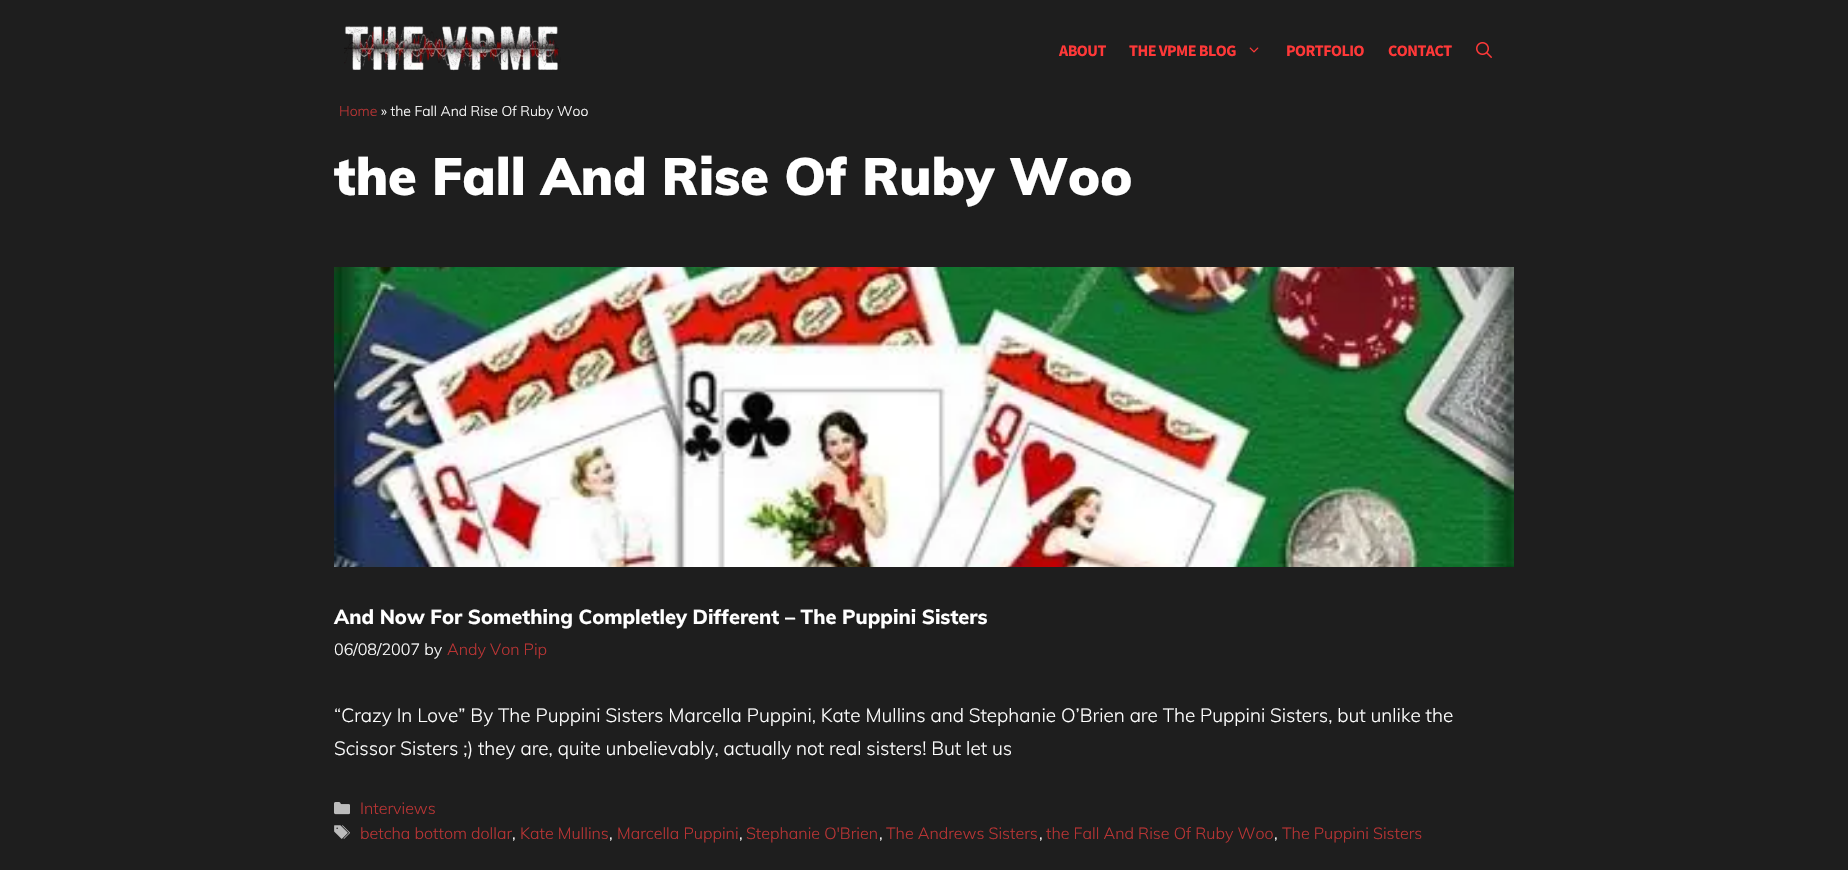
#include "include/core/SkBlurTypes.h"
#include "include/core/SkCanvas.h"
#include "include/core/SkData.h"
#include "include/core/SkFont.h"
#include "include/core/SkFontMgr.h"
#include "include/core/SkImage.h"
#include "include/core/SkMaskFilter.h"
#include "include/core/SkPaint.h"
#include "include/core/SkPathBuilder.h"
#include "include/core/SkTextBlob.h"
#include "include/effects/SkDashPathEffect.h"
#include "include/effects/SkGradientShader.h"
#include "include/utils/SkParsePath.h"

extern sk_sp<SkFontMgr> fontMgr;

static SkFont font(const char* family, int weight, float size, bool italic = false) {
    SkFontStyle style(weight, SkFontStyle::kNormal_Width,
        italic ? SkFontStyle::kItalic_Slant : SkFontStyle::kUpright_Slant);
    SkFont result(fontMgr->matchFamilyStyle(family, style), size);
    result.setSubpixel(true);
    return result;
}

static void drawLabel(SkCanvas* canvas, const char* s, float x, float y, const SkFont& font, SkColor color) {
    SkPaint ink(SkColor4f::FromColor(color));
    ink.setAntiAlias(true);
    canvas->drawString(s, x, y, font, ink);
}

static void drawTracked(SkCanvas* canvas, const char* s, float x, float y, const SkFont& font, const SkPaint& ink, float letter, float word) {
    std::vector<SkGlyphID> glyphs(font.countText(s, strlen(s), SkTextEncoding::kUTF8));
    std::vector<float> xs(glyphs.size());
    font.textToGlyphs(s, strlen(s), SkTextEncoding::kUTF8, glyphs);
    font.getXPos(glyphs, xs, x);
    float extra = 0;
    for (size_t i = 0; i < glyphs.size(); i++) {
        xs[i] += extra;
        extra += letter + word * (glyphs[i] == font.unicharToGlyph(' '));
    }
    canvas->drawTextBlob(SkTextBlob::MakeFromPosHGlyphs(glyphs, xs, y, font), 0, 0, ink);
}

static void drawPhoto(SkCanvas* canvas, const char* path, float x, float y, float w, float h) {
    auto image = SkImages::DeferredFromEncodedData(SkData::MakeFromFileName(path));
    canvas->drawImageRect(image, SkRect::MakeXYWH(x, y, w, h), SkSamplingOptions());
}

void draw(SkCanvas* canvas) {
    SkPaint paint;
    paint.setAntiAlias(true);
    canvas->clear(0xFF1E1E1E);
    drawPhoto(canvas, "assets/img1.png", 344, 26, 217, 45);
    SkFont font1 = font("Source Sans Pro", 700, 16);
    paint.setColor(0xFFFF3838);
    drawTracked(canvas, "ABOUT", 1059, 56, font1, paint, -0.5f, 0);
    drawTracked(canvas, "THE VPME BLOG", 1129, 56, font1, paint, -0.5f, 0);
    drawPhoto(canvas, "assets/img2.png", 1249, 47, 10, 6);
    drawTracked(canvas, "PORTFOLIO", 1286, 56, font1, paint, -0.5f, 0);
    drawTracked(canvas, "CONTACT", 1388, 56, font1, paint, -0.5f, 0);
    drawPhoto(canvas, "assets/img3.png", 1476, 42, 16, 16);
    SkFont font2 = font("Muli", 300, 14);
    drawLabel(canvas, "Home", 339, 116, font2, 0xFFB93434);
    drawLabel(canvas, "» the Fall And Rise Of Ruby Woo", 381, 116, font2, 0xFFFFFFFF);
    SkFont font3 = font("Muli", 900, 52);
    drawLabel(canvas, "the Fall And Rise Of Ruby Woo", 334, 195, font3, 0xFFFFFFFF);
    drawPhoto(canvas, "assets/img4.png", 334, 267, 1180, 300);
    SkFont font4 = font("Muli", 800, 20);
    drawLabel(canvas, "And Now For Something Completley Different – The Puppini Sisters", 334, 624, font4, 0xFFFFFFFF);
    SkFont font5 = font("Muli", 300, 16.1f);
    drawLabel(canvas, "06/08/2007 by", 334, 655, font5, 0xFFFFFFFF);
    drawLabel(canvas, "Andy Von Pip", 447, 655, font5, 0xFFB93434);
    SkFont font6 = font("Muli", 300, 19);
    drawLabel(canvas, "“Crazy In Love” By The Puppini Sisters Marcella Puppini, Kate Mullins and Stephanie O’Brien are The Puppini Sisters, but unlike the", 334, 722, font6, 0xFFFFFFFF);
    drawLabel(canvas, "Scissor Sisters ;) they are, quite unbelievably, actually not real sisters! But let us", 334, 755, font6, 0xFFFFFFFF);
    drawPhoto(canvas, "assets/img5.png", 334, 802, 16, 13);
    drawLabel(canvas, "Interviews", 360, 814, font5, 0xFFB93434);
    drawPhoto(canvas, "assets/img6.png", 334, 825, 16, 14);
    drawLabel(canvas, "betcha bottom dollar", 360, 839, font5, 0xFFB93434);
    drawLabel(canvas, ",", 512, 839, font5, 0xFFFFFFFF);
    drawLabel(canvas, "Kate Mullins", 520, 839, font5, 0xFFB93434);
    drawLabel(canvas, ",", 609, 839, font5, 0xFFFFFFFF);
    drawLabel(canvas, "Marcella Puppini", 617, 839, font5, 0xFFB93434);
    drawLabel(canvas, ",", 739, 839, font5, 0xFFFFFFFF);
    drawLabel(canvas, "Stephanie O'Brien", 746, 839, font5, 0xFFB93434);
    drawLabel(canvas, ",", 879, 839, font5, 0xFFFFFFFF);
    drawLabel(canvas, "The Andrews Sisters", 886, 839, font5, 0xFFB93434);
    drawLabel(canvas, ",", 1039, 839, font5, 0xFFFFFFFF);
    drawLabel(canvas, "the Fall And Rise Of Ruby Woo", 1046, 839, font5, 0xFFB93434);
    drawLabel(canvas, ",", 1274, 839, font5, 0xFFFFFFFF);
    drawLabel(canvas, "The Puppini Sisters", 1282, 839, font5, 0xFFB93434);
}
